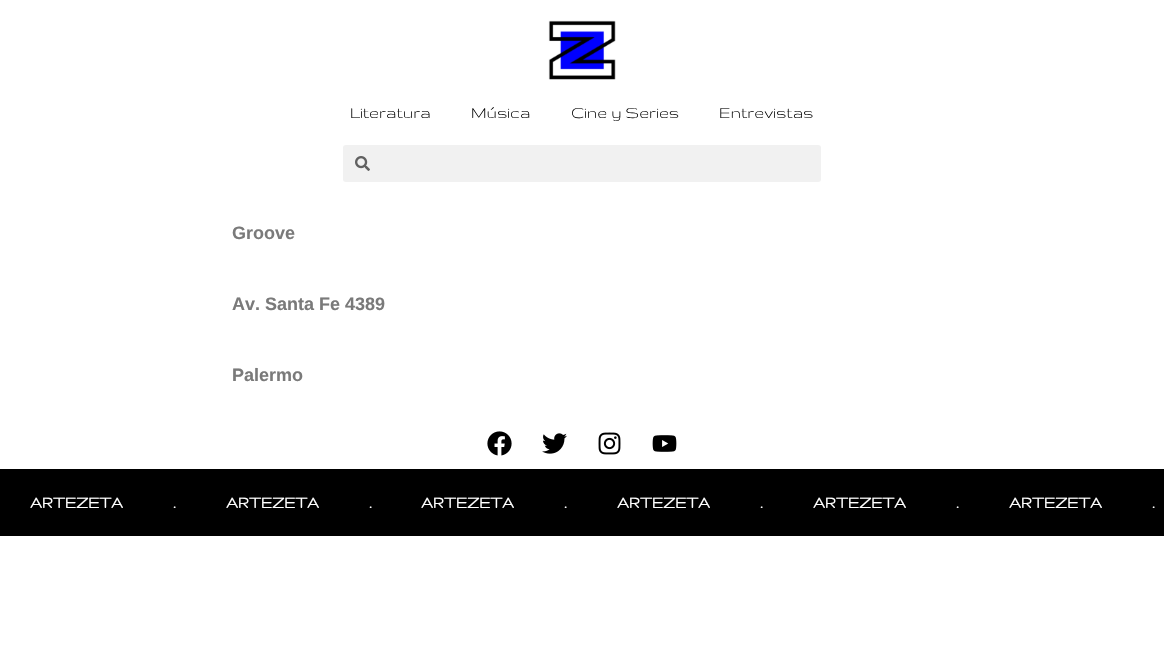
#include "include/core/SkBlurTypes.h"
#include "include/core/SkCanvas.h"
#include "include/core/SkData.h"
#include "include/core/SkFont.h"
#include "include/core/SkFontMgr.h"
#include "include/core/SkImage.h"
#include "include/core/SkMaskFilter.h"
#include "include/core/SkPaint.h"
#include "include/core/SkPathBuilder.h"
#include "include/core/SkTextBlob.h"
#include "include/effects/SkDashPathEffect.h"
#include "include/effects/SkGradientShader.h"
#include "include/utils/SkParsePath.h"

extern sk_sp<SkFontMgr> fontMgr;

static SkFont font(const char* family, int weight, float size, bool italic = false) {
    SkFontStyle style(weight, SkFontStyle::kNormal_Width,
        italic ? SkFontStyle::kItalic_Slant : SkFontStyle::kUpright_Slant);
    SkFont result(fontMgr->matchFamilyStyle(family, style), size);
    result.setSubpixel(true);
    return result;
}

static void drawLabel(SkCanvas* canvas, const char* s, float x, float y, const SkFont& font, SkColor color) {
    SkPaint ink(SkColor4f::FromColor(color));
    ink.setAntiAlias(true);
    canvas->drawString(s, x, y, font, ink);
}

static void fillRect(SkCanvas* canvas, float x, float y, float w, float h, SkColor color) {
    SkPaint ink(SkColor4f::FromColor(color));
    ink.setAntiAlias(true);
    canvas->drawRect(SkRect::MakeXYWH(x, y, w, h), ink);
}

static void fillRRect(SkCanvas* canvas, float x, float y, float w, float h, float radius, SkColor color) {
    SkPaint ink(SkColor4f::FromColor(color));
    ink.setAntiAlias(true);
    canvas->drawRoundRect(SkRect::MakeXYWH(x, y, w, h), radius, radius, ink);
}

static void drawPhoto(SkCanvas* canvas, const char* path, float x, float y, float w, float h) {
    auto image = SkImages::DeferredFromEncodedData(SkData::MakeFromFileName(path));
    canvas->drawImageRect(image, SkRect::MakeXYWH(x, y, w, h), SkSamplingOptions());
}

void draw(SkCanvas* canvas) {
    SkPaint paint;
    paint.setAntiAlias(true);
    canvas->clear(0xFFFFFFFF);
    drawPhoto(canvas, "assets/img1.png", 548, 20, 68, 60);
    SkFont font1 = font("Gruppo", 400, 18);
    drawLabel(canvas, "Literatura", 350, 118, font1, 0xFF000000);
    drawLabel(canvas, "Música", 471, 118, font1, 0xFF000000);
    drawLabel(canvas, "Cine y Series", 571, 118, font1, 0xFF000000);
    drawLabel(canvas, "Entrevistas", 719, 118, font1, 0xFF000000);
    fillRRect(canvas, 343, 145, 478, 37, 3, 0xFFF1F1F1);
    drawPhoto(canvas, "assets/img2.png", 355, 156, 15, 15);
    SkFont font2 = font("Liberation Sans", 700, 18);
    drawLabel(canvas, "Groove", 232, 239, font2, 0xFF7A7A7A);
    drawLabel(canvas, "Av. Santa Fe 4389", 232, 310, font2, 0xFF7A7A7A);
    drawLabel(canvas, "Palermo", 232, 381, font2, 0xFF7A7A7A);
    drawPhoto(canvas, "assets/img3.png", 487, 431, 25, 25);
    drawPhoto(canvas, "assets/img4.png", 542, 433, 25, 21);
    drawPhoto(canvas, "assets/img5.png", 598, 432, 23, 23);
    drawPhoto(canvas, "assets/img6.png", 652, 435, 25, 17);
    fillRect(canvas, 0, 469, 1164, 67, 0xFF000000);
    SkFont font3 = font("Gruppo", 700, 18);
    drawLabel(canvas, "ARTEZETA", 30, 508, font3, 0xFFFFFFFF);
    drawLabel(canvas, ".", 173, 508, font3, 0xFFFFFFFF);
    drawLabel(canvas, "ARTEZETA", 226, 508, font3, 0xFFFFFFFF);
    drawLabel(canvas, ".", 369, 508, font3, 0xFFFFFFFF);
    drawLabel(canvas, "ARTEZETA", 421, 508, font3, 0xFFFFFFFF);
    drawLabel(canvas, ".", 564, 508, font3, 0xFFFFFFFF);
    drawLabel(canvas, "ARTEZETA", 617, 508, font3, 0xFFFFFFFF);
    drawLabel(canvas, ".", 760, 508, font3, 0xFFFFFFFF);
    drawLabel(canvas, "ARTEZETA", 813, 508, font3, 0xFFFFFFFF);
    drawLabel(canvas, ".", 956, 508, font3, 0xFFFFFFFF);
    drawLabel(canvas, "ARTEZETA", 1009, 508, font3, 0xFFFFFFFF);
    drawLabel(canvas, ".", 1152, 508, font3, 0xFFFFFFFF);
}
